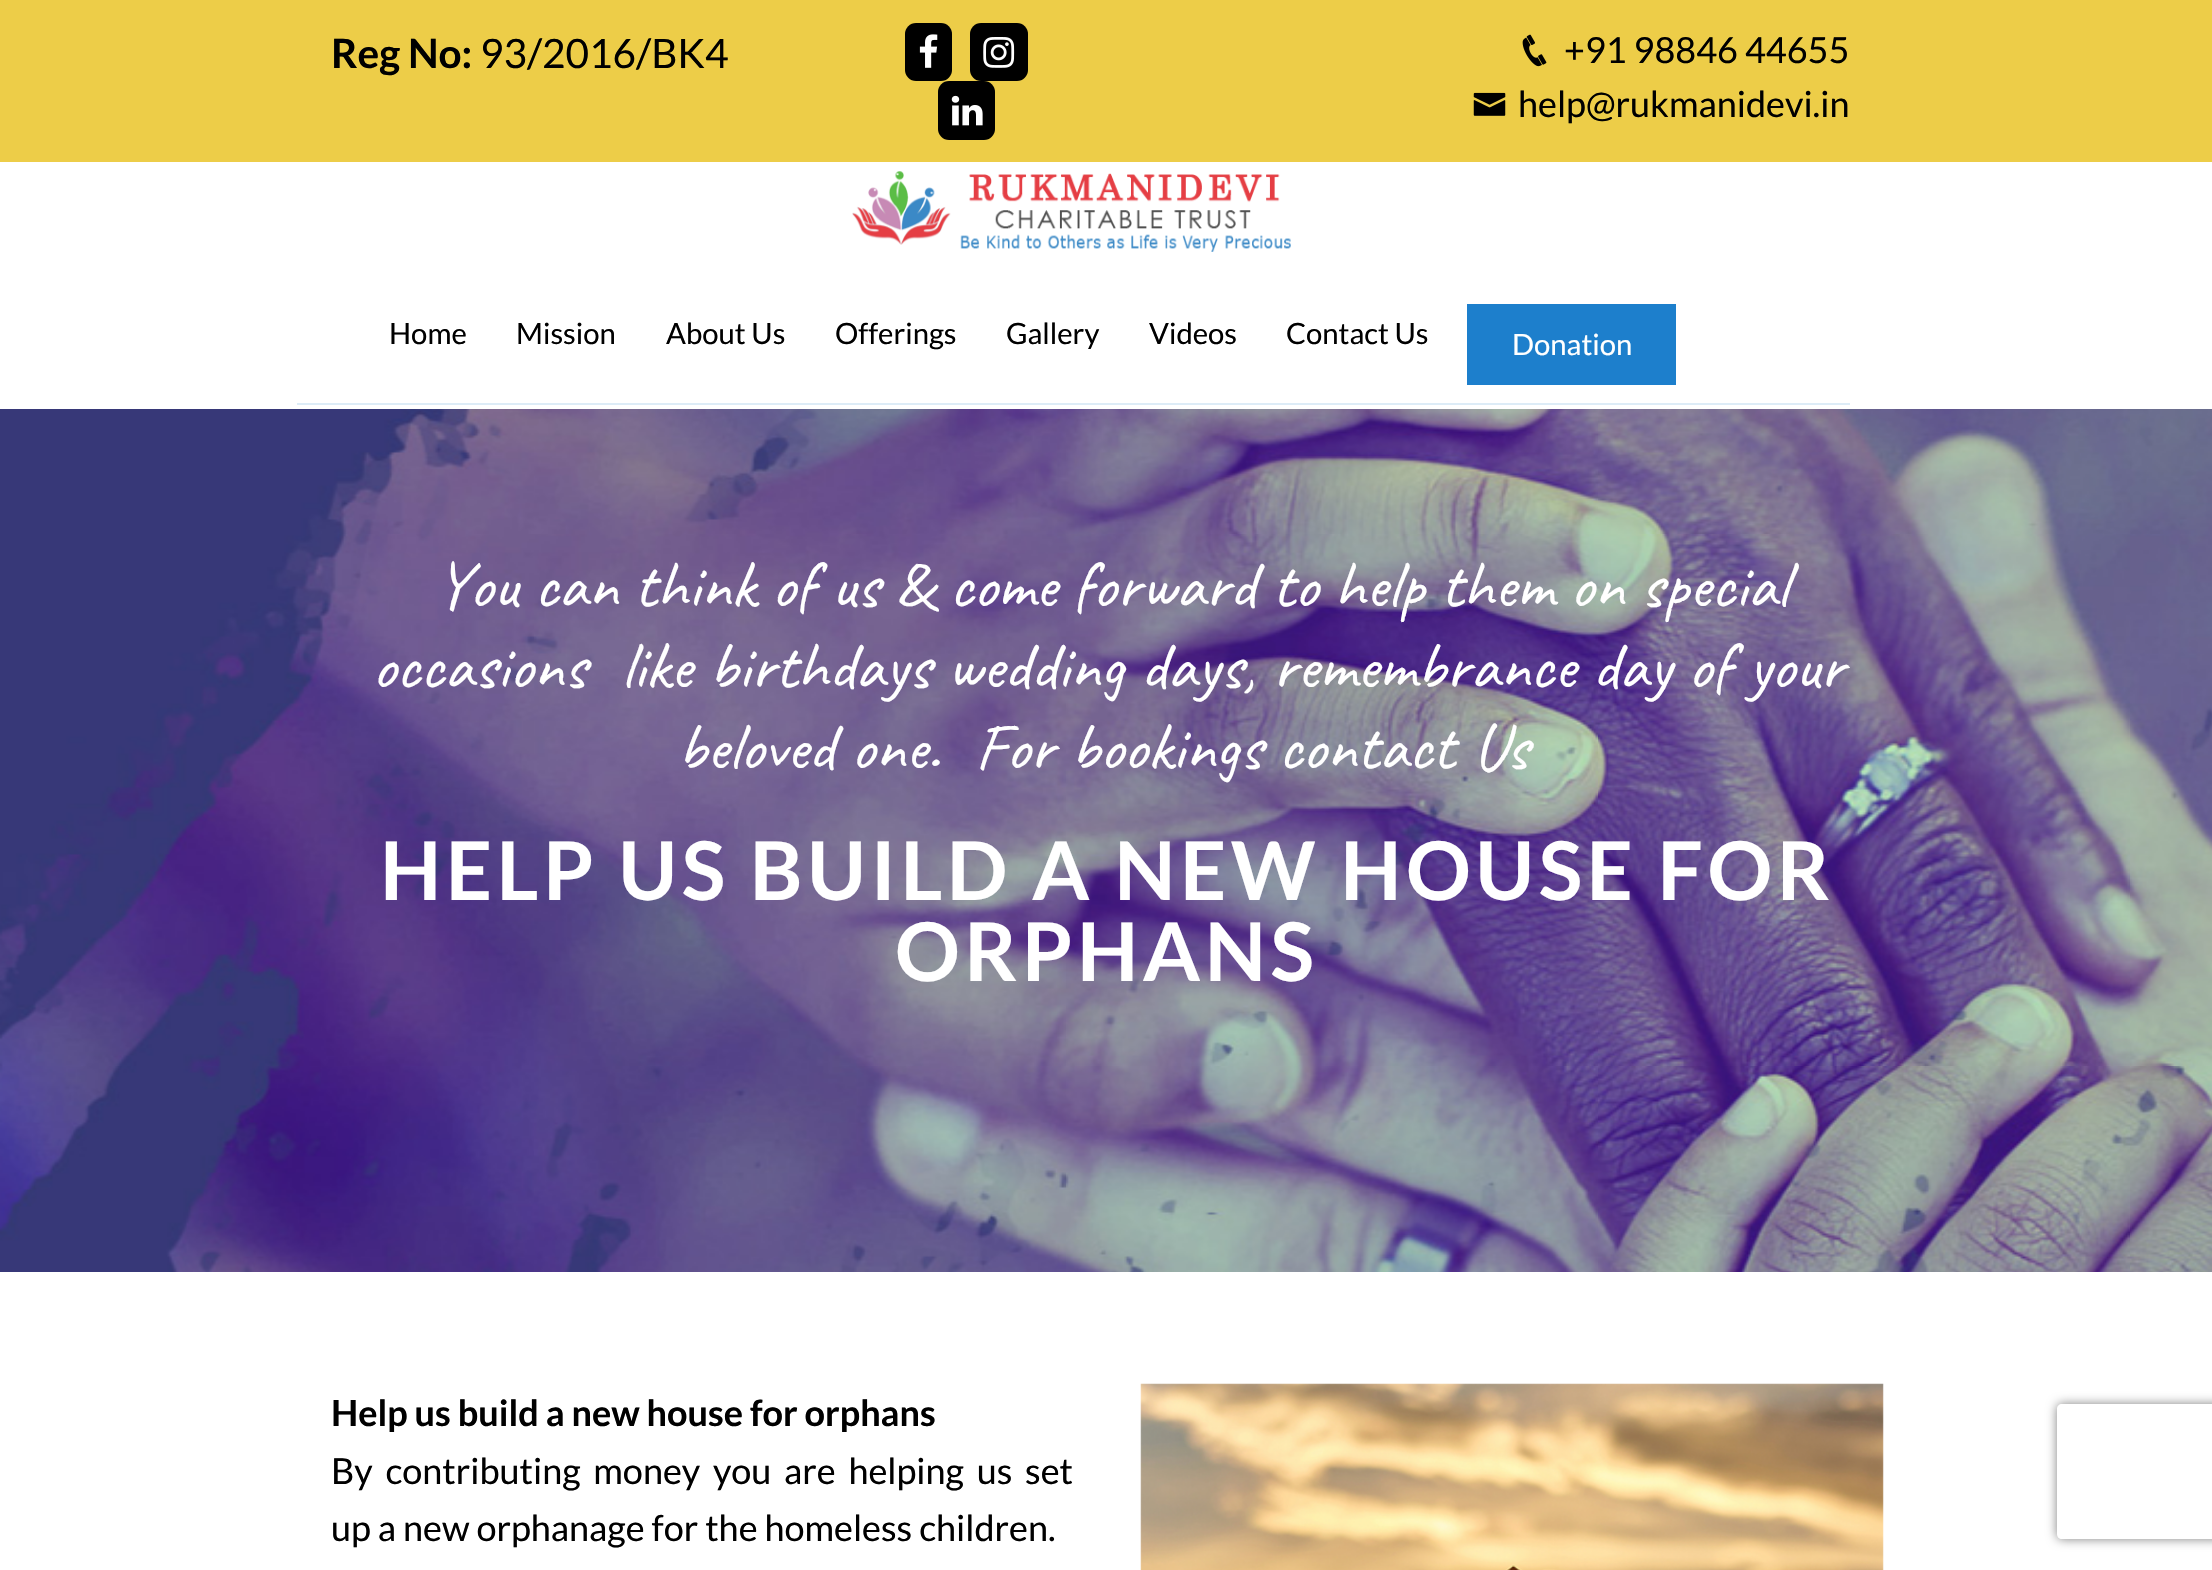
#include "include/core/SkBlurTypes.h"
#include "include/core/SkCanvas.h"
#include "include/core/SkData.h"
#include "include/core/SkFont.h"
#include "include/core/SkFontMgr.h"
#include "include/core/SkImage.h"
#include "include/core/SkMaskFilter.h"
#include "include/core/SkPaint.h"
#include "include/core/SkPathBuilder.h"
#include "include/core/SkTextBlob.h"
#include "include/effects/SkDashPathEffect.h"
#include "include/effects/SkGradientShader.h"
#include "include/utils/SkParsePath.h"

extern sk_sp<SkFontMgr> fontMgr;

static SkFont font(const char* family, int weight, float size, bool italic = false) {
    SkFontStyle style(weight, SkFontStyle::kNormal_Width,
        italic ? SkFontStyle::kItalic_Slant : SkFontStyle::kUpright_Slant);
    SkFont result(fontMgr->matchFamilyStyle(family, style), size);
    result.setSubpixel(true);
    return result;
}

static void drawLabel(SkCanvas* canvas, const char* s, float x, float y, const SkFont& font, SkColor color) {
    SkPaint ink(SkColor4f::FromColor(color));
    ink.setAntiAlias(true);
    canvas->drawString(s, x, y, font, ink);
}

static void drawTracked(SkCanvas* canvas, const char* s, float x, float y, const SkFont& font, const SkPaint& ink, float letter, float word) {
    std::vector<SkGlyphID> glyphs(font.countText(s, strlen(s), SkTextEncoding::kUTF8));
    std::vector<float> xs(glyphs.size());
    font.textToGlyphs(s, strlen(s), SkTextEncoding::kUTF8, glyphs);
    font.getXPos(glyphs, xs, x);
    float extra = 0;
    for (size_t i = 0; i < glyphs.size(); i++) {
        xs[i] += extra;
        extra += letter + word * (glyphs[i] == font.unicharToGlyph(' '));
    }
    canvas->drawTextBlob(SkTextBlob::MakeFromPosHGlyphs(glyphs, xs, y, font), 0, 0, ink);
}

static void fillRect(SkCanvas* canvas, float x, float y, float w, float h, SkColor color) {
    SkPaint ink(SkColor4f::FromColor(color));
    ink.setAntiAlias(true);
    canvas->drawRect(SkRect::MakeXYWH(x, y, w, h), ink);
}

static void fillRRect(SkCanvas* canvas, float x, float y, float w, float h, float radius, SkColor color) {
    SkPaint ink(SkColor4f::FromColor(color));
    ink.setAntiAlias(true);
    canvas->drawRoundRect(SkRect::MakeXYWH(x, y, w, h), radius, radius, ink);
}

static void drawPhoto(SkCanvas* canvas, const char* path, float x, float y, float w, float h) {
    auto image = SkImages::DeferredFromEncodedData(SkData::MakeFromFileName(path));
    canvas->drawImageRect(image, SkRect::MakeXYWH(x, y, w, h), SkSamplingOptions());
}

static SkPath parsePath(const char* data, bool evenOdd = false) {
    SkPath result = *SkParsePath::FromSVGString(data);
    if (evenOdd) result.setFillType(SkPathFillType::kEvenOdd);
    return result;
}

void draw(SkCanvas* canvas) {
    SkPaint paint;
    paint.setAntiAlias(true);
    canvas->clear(0xFFFFFFFF);
    fillRect(canvas, 0, 0, 2212, 162, 0xFFEDCD48);
    SkFont font1 = font("Lato", 700, 40.5f);
    drawLabel(canvas, "Reg No:", 331, 68, font1, 0xFF000000);
    SkFont font2 = font("Lato", 400, 40.5f);
    drawLabel(canvas, "93/2016/BK4", 480, 68, font2, 0xFF000000);
    fillRRect(canvas, 905, 23, 47, 58, 11, 0xFF000000);
    drawPhoto(canvas, "assets/img1.png", 919, 34, 19, 34);
    fillRRect(canvas, 970, 23, 58, 58, 11, 0xFF000000);
    drawPhoto(canvas, "assets/img2.png", 983, 37, 32, 31);
    fillRRect(canvas, 938, 81, 57, 59, 11, 0xFF000000);
    drawPhoto(canvas, "assets/img3.png", 951, 95, 32, 31);
    drawPhoto(canvas, "assets/img4.png", 1522, 34, 25, 33);
    SkFont font3 = font("Lato", 400, 36);
    drawLabel(canvas, "+91 98846 44655", 1564, 63, font3, 0xFF000000);
    drawPhoto(canvas, "assets/img5.png", 1473, 92, 33, 24);
    drawLabel(canvas, "help@rukmanidevi.in", 1518, 117, font3, 0xFF000000);
    fillRect(canvas, 297, 403, 1553, 2, 0xFFDDECF7);
    drawPhoto(canvas, "assets/img6.png", 852, 171, 439, 81);
    SkFont font4 = font("Lato", 400, 29.25f);
    drawLabel(canvas, "Home", 389, 344, font4, 0xFF000000);
    drawLabel(canvas, "Mission", 516, 344, font4, 0xFF000000);
    drawLabel(canvas, "About Us", 666, 344, font4, 0xFF000000);
    drawLabel(canvas, "Offerings", 835, 344, font4, 0xFF000000);
    drawLabel(canvas, "Gallery", 1006, 344, font4, 0xFF000000);
    drawLabel(canvas, "Videos", 1149, 344, font4, 0xFF000000);
    drawLabel(canvas, "Contact Us", 1286, 344, font4, 0xFF000000);
    fillRect(canvas, 1467, 304, 209, 81, 0xFF1D7FCC);
    drawLabel(canvas, "Donation", 1512, 355, font4, 0xFFFFFFFF);
    drawPhoto(canvas, "assets/img7.png", 0, 409, 2212, 863);
    SkFont font5 = font("Caveat", 400, 67.5f);
    paint.setColor(0xFFFFFFFF);
    drawTracked(canvas, "You can think of us & come forward to help them on special", 435, 607, font5, paint, 0, -0.25f);
    drawLabel(canvas, "occasions", 372, 688, font5, 0xFFFFFFFF);
    drawTracked(canvas, "like birthdays wedding days, remembrance day of your", 621, 688, font5, paint, 0, 0.25f);
    drawLabel(canvas, "beloved one.", 677, 769, font5, 0xFFFFFFFF);
    drawLabel(canvas, "For bookings", 975, 769, font5, 0xFFFFFFFF);
    drawTracked(canvas, "contact Us", 1278, 769, font5, paint, 0, 2);
    SkFont font6 = font("Lato", 700, 81);
    drawTracked(canvas, "HELP US BUILD A NEW HOUSE FOR", 380, 900, font6, paint, 4.5f, 0);
    drawTracked(canvas, "ORPHANS", 895, 981, font6, paint, 4.5f, 0);
    SkFont font7 = font("Lato", 700, 36);
    drawLabel(canvas, "Help us build a new house for orphans", 331, 1426, font7, 0xFF000000);
    paint.setColor(0xFF000000);
    drawTracked(canvas, "By contributing money you are helping us set", 331, 1484, font3, paint, 0, 5.75f);
    drawLabel(canvas, "up a new orphanage for the homeless children.", 331, 1541, font3, 0xFF000000);
    drawPhoto(canvas, "assets/img8.png", 1140, 1383, 744, 187);
    canvas->save();
    canvas->clipPath(parsePath("M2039 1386H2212V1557H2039ZM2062 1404H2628C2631 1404 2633 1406 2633 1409V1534C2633 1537 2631 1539 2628 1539H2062C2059 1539 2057 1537 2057 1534V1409C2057 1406 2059 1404 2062 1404Z", true), true);
    paint.setColor(0xFF808080);
    paint.setMaskFilter(SkMaskFilter::MakeBlur(kNormal_SkBlurStyle, 5.5f));
    canvas->drawRoundRect(SkRect::MakeXYWH(2057, 1404, 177, 135), 5, 5, paint);
    paint.setMaskFilter(nullptr);
    canvas->restore();
}
